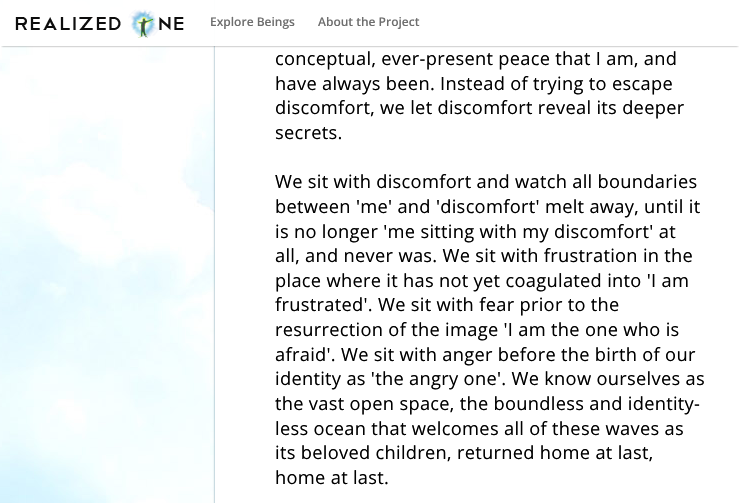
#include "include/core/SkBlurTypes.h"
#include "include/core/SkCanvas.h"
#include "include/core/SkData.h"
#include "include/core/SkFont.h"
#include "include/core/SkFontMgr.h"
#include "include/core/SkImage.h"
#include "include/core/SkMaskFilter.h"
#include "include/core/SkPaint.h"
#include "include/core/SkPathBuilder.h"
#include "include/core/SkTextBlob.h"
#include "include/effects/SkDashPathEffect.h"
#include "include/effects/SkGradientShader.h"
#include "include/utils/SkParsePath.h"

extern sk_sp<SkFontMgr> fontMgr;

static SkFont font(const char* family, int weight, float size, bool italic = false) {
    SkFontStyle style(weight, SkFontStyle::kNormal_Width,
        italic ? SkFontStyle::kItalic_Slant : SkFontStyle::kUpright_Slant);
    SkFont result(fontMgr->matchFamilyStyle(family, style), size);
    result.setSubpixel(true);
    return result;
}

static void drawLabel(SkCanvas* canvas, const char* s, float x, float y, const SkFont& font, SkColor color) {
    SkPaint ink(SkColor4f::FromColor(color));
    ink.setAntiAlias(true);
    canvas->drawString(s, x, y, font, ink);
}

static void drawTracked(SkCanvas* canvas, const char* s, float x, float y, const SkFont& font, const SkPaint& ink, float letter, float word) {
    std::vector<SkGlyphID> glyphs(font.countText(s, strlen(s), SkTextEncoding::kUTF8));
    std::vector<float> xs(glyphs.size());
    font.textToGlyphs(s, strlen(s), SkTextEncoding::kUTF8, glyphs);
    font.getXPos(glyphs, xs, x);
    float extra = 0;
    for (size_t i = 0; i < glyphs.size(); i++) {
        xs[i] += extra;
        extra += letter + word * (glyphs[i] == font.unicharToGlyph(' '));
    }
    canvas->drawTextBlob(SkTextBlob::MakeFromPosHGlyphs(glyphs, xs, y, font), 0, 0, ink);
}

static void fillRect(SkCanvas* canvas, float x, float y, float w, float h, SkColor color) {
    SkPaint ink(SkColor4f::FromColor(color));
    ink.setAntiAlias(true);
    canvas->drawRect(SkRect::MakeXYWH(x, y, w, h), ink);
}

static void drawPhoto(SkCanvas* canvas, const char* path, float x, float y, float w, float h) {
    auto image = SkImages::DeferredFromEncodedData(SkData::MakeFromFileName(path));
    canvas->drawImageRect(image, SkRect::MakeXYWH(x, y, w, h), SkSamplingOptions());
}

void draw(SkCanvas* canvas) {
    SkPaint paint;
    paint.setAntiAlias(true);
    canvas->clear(0xFFFFFFFF);
    drawPhoto(canvas, "assets/img1.png", 0, 0, 215, 503);
    paint.setColor(0xFF6591A3);
    paint.setMaskFilter(SkMaskFilter::MakeBlur(kNormal_SkBlurStyle, 1));
    canvas->drawRect(SkRect::MakeXYWH(215, -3, 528, 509), paint);
    paint.setMaskFilter(nullptr);
    fillRect(canvas, 215, 0, 525, 503, 0xFFFFFFFF);
    canvas->save();
    canvas->clipRect(SkRect::MakeXYWH(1, 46, 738, 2));
    paint.setColor(0x7D000000);
    paint.setMaskFilter(SkMaskFilter::MakeBlur(kNormal_SkBlurStyle, 1));
    canvas->drawRect(SkRect::MakeXYWH(2, 4, 736, 42), paint);
    paint.setMaskFilter(nullptr);
    canvas->restore();
    fillRect(canvas, 0, 0, 215, 45, 0xF2FFFFFF);
    fillRect(canvas, 0, 45, 215, 1, 0xFFFFFFFF);
    drawPhoto(canvas, "assets/img2.png", 15, 9, 169, 29);
    SkFont font1 = font("Open Sans", 600, 12);
    drawLabel(canvas, "Explore Beings", 210, 26, font1, 0xFF6E6E6E);
    drawLabel(canvas, "About the Project", 318, 26, font1, 0xFF6E6E6E);
    SkFont font2 = font("Open Sans", 400, 18.25f);
    paint.setColor(0xFF000000);
    drawTracked(canvas, "conceptual, ever-present peace that I am, and", 275, 65, font2, paint, 0.3f, 0);
    drawTracked(canvas, "have always been. Instead of trying to escape", 275, 90, font2, paint, 0.3f, 0);
    drawTracked(canvas, "discomfort, we let discomfort reveal its deeper", 275, 114, font2, paint, 0.3f, 0);
    drawTracked(canvas, "secrets.", 275, 139, font2, paint, 0.3f, 0);
    drawTracked(canvas, "We sit with discomfort and watch all boundaries", 275, 188, font2, paint, 0.3f, 0);
    drawTracked(canvas, "between 'me' and 'discomfort' melt away, until it", 275, 213, font2, paint, 0.3f, 0);
    drawTracked(canvas, "is no longer 'me sitting with my discomfort' at", 275, 238, font2, paint, 0.3f, 0);
    drawTracked(canvas, "all, and never was. We sit with frustration in the", 275, 262, font2, paint, 0.3f, 0);
    drawTracked(canvas, "place where it has not yet coagulated into 'I am", 275, 287, font2, paint, 0.3f, 0);
    drawTracked(canvas, "frustrated'. We sit with fear prior to the", 275, 311, font2, paint, 0.3f, 0);
    drawTracked(canvas, "resurrection of the image 'I am the one who is", 275, 336, font2, paint, 0.3f, 0);
    drawTracked(canvas, "afraid'. We sit with anger before the birth of our", 275, 361, font2, paint, 0.3f, 0);
    drawTracked(canvas, "identity as 'the angry one'. We know ourselves as", 275, 385, font2, paint, 0.3f, 0);
    drawTracked(canvas, "the vast open space, the boundless and identity-", 275, 410, font2, paint, 0.3f, 0);
    drawTracked(canvas, "less ocean that welcomes all of these waves as", 275, 435, font2, paint, 0.3f, 0);
    drawTracked(canvas, "its beloved children, returned home at last,", 275, 459, font2, paint, 0.3f, 0);
    drawTracked(canvas, "home at last.", 275, 484, font2, paint, 0.3f, 0);
}
